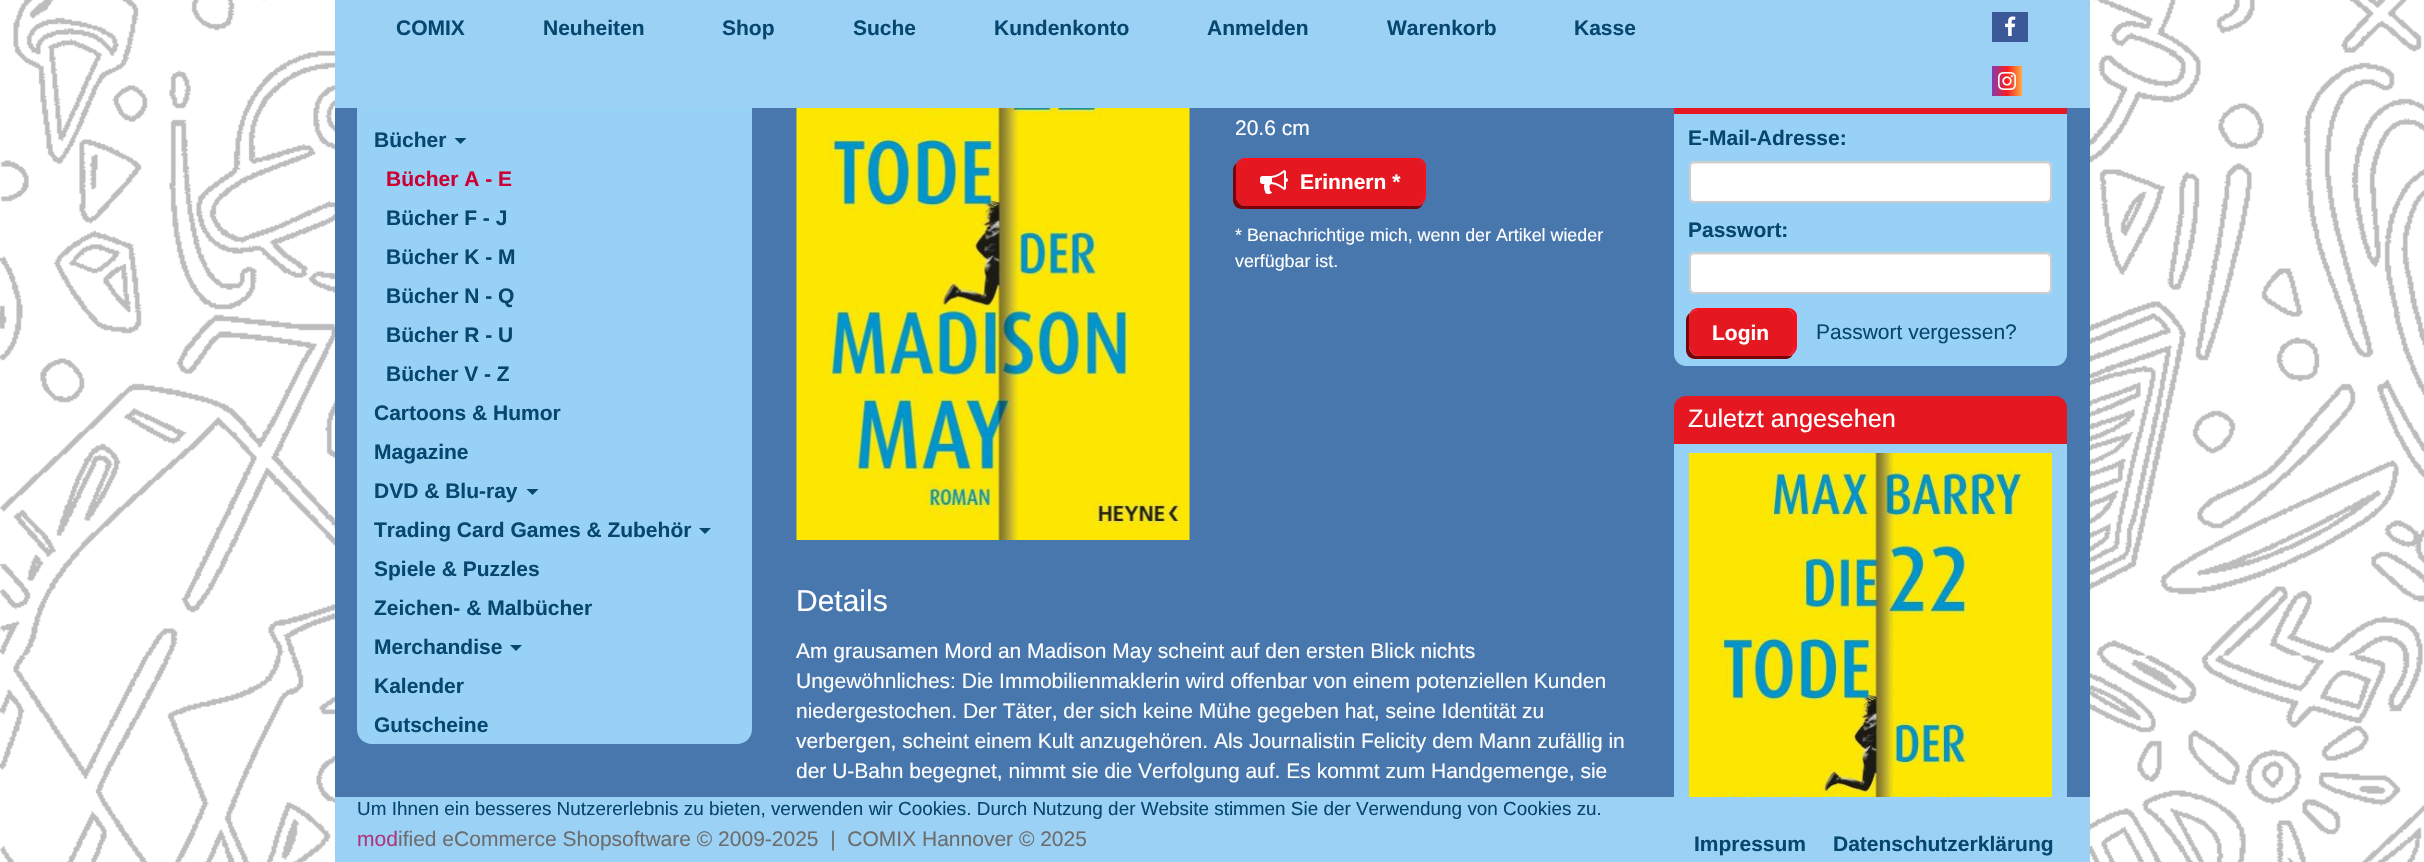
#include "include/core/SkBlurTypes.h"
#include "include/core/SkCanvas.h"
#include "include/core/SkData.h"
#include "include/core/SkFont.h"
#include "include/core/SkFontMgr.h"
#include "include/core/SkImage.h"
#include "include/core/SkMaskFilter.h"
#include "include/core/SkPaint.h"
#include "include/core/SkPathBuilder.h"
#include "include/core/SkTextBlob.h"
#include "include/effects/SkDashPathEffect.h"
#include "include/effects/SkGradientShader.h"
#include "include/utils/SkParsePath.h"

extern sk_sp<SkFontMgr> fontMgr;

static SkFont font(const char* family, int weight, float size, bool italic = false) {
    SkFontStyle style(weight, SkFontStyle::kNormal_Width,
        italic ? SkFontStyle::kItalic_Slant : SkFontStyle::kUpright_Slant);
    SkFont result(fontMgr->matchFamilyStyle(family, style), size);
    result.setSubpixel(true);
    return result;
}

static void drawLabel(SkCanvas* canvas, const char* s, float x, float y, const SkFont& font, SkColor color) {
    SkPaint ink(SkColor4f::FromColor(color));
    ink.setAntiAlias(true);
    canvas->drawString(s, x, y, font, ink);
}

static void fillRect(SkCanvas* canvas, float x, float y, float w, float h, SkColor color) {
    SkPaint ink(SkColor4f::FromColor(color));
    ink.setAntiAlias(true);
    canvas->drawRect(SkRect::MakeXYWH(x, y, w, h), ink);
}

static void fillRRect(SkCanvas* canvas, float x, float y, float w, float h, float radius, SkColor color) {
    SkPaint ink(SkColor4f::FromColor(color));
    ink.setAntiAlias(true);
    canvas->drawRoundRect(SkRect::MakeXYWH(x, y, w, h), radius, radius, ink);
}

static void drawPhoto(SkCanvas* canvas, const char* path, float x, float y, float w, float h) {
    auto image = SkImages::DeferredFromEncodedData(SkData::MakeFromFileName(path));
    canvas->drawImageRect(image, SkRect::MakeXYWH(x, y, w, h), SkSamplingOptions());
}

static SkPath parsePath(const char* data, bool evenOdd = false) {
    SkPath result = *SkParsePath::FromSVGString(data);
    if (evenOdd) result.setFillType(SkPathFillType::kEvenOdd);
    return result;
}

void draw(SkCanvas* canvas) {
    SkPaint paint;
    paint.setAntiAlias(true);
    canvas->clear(0xFFFFFFFF);
    drawPhoto(canvas, "assets/img1.png", 0, 0, 2424, 862);
    fillRect(canvas, 335, 0, 1755, 108, 0xFF9AD1F4);
    SkFont font1 = font("Liberation Sans", 700, 21);
    drawLabel(canvas, "COMIX", 396, 35, font1, 0xFF06476F);
    drawLabel(canvas, "Neuheiten", 543, 35, font1, 0xFF06476F);
    drawLabel(canvas, "Shop", 722, 35, font1, 0xFF06476F);
    drawLabel(canvas, "Suche", 853, 35, font1, 0xFF06476F);
    drawLabel(canvas, "Kundenkonto", 994, 35, font1, 0xFF06476F);
    drawLabel(canvas, "Anmelden", 1207, 35, font1, 0xFF06476F);
    drawLabel(canvas, "Warenkorb", 1387, 35, font1, 0xFF06476F);
    drawLabel(canvas, "Kasse", 1574, 35, font1, 0xFF06476F);
    fillRect(canvas, 1992, 12, 36, 30, 0xFF3B5998);
    drawPhoto(canvas, "assets/img2.png", 2005, 16, 11, 20);
    {
        const SkColor colors[] = {0xFF8439B1, 0xFFFA1D1F, 0xFFFCAD44};
        const float stops[] = {0, 0.5f, 1};
        const SkPoint ends[] = {{1992, 81}, {2022, 81}};
        paint.setShader(SkGradientShader::MakeLinear(ends, colors, stops, 3, SkTileMode::kClamp));
        paint.setAlpha(255);
    }
    canvas->drawRect(SkRect::MakeXYWH(1992, 66, 30, 30), paint);
    drawPhoto(canvas, "assets/img3.png", 1998, 72, 18, 18);
    fillRect(canvas, 335, 108, 1755, 689, 0xFF4877AD);
    fillRect(canvas, 357, 108, 395, 597, 0xFF97D1F6);
    drawLabel(canvas, "Bücher", 374, 147, font1, 0xFF06476F);
    paint.setShader(nullptr);
    paint.setColor(0xFF06476F);
    canvas->drawPath(parsePath("M454.5 138H466.5L460.5 144Z"), paint);
    drawLabel(canvas, "Bücher A - E", 386, 186, font1, 0xFFCC0033);
    drawLabel(canvas, "Bücher F - J", 386, 225, font1, 0xFF06476F);
    drawLabel(canvas, "Bücher K - M", 386, 264, font1, 0xFF06476F);
    drawLabel(canvas, "Bücher N - Q", 386, 303, font1, 0xFF06476F);
    drawLabel(canvas, "Bücher R - U", 386, 342, font1, 0xFF06476F);
    drawLabel(canvas, "Bücher V - Z", 386, 381, font1, 0xFF06476F);
    drawLabel(canvas, "Cartoons & Humor", 374, 420, font1, 0xFF06476F);
    drawLabel(canvas, "Magazine", 374, 459, font1, 0xFF06476F);
    drawLabel(canvas, "DVD & Blu-ray", 374, 498, font1, 0xFF06476F);
    canvas->drawPath(parsePath("M526.5 489H538.5L532.5 495Z"), paint);
    drawLabel(canvas, "Trading Card Games & Zubehör", 374, 537, font1, 0xFF06476F);
    canvas->drawPath(parsePath("M699 528H711L705 534Z"), paint);
    drawLabel(canvas, "Spiele & Puzzles", 374, 576, font1, 0xFF06476F);
    drawLabel(canvas, "Zeichen- & Malbücher", 374, 615, font1, 0xFF06476F);
    drawLabel(canvas, "Merchandise", 374, 654, font1, 0xFF06476F);
    canvas->drawPath(parsePath("M510 645H522L516 651Z"), paint);
    drawLabel(canvas, "Kalender", 374, 693, font1, 0xFF06476F);
    paint.setColor(0xFF97D1F6);
    canvas->drawPath(parsePath("M357 705H752V729C752 737.5 745.5 744 737 744H372C363.5 744 357 737.5 357 729Z"), paint);
    drawLabel(canvas, "Gutscheine", 374, 732, font1, 0xFF06476F);
    drawPhoto(canvas, "assets/img4.png", 796, 108, 394, 432);
    SkFont font2 = font("Liberation Sans", 400, 21);
    drawLabel(canvas, "20.6 cm", 1235, 135, font2, 0xFFFFFFFF);
    paint.setColor(0xFF770207);
    canvas->drawPath(parsePath("M1237 163C1235 164 1233 167 1233 170V200C1233 205 1237 209 1242 209H1415C1419 209 1422 207 1423 203C1422 205 1420 206 1418 206H1245C1240 206 1236 201 1236 196V166Z"), paint);
    paint.setColor(0xFFE51720);
    canvas->drawPath(parsePath("M1245 160H1418C1421 160 1424 163 1424 166V196C1424 201 1421 206 1418 206H1245C1240 206 1236 201 1236 196V166C1236 163 1240 160 1245 160Z"), paint);
    paint.setColor(0xFFFF0D1B);
    canvas->drawPath(parsePath("M1245 158H1418C1422 158 1426 162 1426 166V196C1426 201 1422 206 1418 206H1245C1240 206 1236 201 1236 196V166C1236 162 1240 158 1245 158ZM1245 160H1418C1421 160 1424 163 1424 166V196C1424 201 1421 206 1418 206H1245C1240 206 1236 201 1236 196V166C1236 163 1240 160 1245 160Z", true), paint);
    drawPhoto(canvas, "assets/img5.png", 1260, 170, 28, 24);
    drawLabel(canvas, "Erinnern *", 1300, 189, font1, 0xFFFFFFFF);
    SkFont font3 = font("Liberation Sans", 400, 17.85f);
    drawLabel(canvas, "* Benachrichtige mich, wenn der Artikel wieder", 1235, 241, font3, 0xFFFFFFFF);
    drawLabel(canvas, "verfügbar ist.", 1235, 267, font3, 0xFFFFFFFF);
    SkFont font4 = font("Liberation Sans", 400, 30);
    drawLabel(canvas, "Details", 796, 611, font4, 0xFFFFFFFF);
    drawLabel(canvas, "Am grausamen Mord an Madison May scheint auf den ersten Blick nichts", 796, 658, font2, 0xFFFFFFFF);
    drawLabel(canvas, "Ungewöhnliches: Die Immobilienmaklerin wird offenbar von einem potenziellen Kunden", 796, 688, font2, 0xFFFFFFFF);
    drawLabel(canvas, "niedergestochen. Der Täter, der sich keine Mühe gegeben hat, seine Identität zu", 796, 718, font2, 0xFFFFFFFF);
    drawLabel(canvas, "verbergen, scheint einem Kult anzugehören. Als Journalistin Felicity dem Mann zufällig in", 796, 748, font2, 0xFFFFFFFF);
    drawLabel(canvas, "der U-Bahn begegnet, nimmt sie die Verfolgung auf. Es kommt zum Handgemenge, sie", 796, 778, font2, 0xFFFFFFFF);
    fillRect(canvas, 1674, 108, 393, 6, 0xFFE51720);
    paint.setColor(0xFF97D1F6);
    canvas->drawPath(parsePath("M1674 114H2067V354C2067 360.5 2061.5 366 2055 366H1686C1679.5 366 1674 360.5 1674 354Z"), paint);
    drawLabel(canvas, "E-Mail-Adresse:", 1688, 145, font1, 0xFF06476F);
    fillRRect(canvas, 1689, 161, 363, 42, 6, 0xFFFFFFFF);
    paint.setColor(0xFFECECEC);
    canvas->drawPath(parsePath("M1695 164H2046C2052 164 2050 175 2050 178V199C2051 198 2051 197 2051 196V167C2051 164 2049 162 2046 162H1696C1694 162 1692 164 1691 166C1692 165 1694 164 1695 164Z"), paint);
    paint.setStroke(true);
    paint.setStrokeWidth(2);
    paint.setColor(0xFFCCCCCC);
    canvas->drawRoundRect(SkRect::MakeXYWH(1690, 162, 361, 40), 5, 5, paint);
    drawLabel(canvas, "Passwort:", 1688, 237, font1, 0xFF06476F);
    fillRRect(canvas, 1689, 252, 363, 42, 6, 0xFFFFFFFF);
    paint.setStroke(false);
    paint.setColor(0xFFECECEC);
    canvas->drawPath(parsePath("M1695 255H2046C2052 255 2050 267 2050 270V291C2051 290 2051 289 2051 288V259C2051 256 2049 254 2046 254H1696C1694 254 1693 255 1692 256Z"), paint);
    paint.setStroke(true);
    paint.setColor(0xFFCCCCCC);
    canvas->drawRoundRect(SkRect::MakeXYWH(1690, 253, 361, 40), 5, 5, paint);
    paint.setStroke(false);
    paint.setColor(0xFF770207);
    canvas->drawPath(parsePath("M1690 313C1688 314 1686 317 1686 320V350C1686 355 1690 359 1695 359H1785C1789 359 1792 357 1793 354C1792 355 1790 356 1788 356H1698C1693 356 1689 351 1689 346V316Z"), paint);
    paint.setColor(0xFFE51720);
    canvas->drawPath(parsePath("M1698 310H1788C1791 310 1794 313 1794 316V346C1794 351 1791 356 1788 356H1698C1693 356 1689 351 1689 346V316C1689 313 1693 310 1698 310Z"), paint);
    paint.setColor(0xFFFF0D1B);
    canvas->drawPath(parsePath("M1698 308H1788C1793 308 1797 312 1797 316V346C1797 351 1793 356 1788 356H1698C1693 356 1689 351 1689 346V316C1689 312 1693 308 1698 308ZM1698 310H1788C1791 310 1794 313 1794 316V346C1794 351 1791 356 1788 356H1698C1693 356 1689 351 1689 346V316C1689 313 1693 310 1698 310Z", true), paint);
    drawLabel(canvas, "Login", 1712, 340, font1, 0xFFFFFFFF);
    drawLabel(canvas, "Passwort vergessen?", 1816, 339, font2, 0xFF06476F);
    paint.setColor(0xFFE51720);
    canvas->drawPath(parsePath("M1686 396H2055C2061.5 396 2067 401.5 2067 408V444H1674V408C1674 401.5 1679.5 396 1686 396Z"), paint);
    SkFont font5 = font("Liberation Sans", 400, 25.25f);
    drawLabel(canvas, "Zuletzt angesehen", 1688, 427, font5, 0xFFFFFFFF);
    fillRect(canvas, 1674, 444, 393, 353, 0xFF97D1F6);
    drawPhoto(canvas, "assets/img6.png", 1689, 453, 363, 344);
    fillRect(canvas, 335, 797, 1755, 65, 0xFF9AD1F4);
    SkFont font6 = font("Liberation Sans", 400, 18.9f);
    drawLabel(canvas, "Um Ihnen ein besseres Nutzererlebnis zu bieten, verwenden wir Cookies. Durch Nutzung der Website stimmen Sie der Verwendung von Cookies zu.", 357, 815, font6, 0xFF06476F);
    drawLabel(canvas, "mod", 357, 846, font2, 0xFFB0347E);
    drawLabel(canvas, "ified eCommerce Shopsoftware © 2009-2025  |  COMIX Hannover © 2025", 398, 846, font2, 0xFF6D6D6D);
    drawLabel(canvas, "Impressum", 1694, 851, font1, 0xFF06476F);
    drawLabel(canvas, "Datenschutzerklärung", 1833, 851, font1, 0xFF06476F);
}
